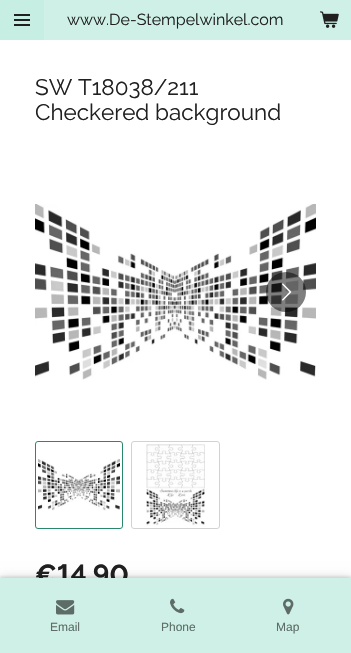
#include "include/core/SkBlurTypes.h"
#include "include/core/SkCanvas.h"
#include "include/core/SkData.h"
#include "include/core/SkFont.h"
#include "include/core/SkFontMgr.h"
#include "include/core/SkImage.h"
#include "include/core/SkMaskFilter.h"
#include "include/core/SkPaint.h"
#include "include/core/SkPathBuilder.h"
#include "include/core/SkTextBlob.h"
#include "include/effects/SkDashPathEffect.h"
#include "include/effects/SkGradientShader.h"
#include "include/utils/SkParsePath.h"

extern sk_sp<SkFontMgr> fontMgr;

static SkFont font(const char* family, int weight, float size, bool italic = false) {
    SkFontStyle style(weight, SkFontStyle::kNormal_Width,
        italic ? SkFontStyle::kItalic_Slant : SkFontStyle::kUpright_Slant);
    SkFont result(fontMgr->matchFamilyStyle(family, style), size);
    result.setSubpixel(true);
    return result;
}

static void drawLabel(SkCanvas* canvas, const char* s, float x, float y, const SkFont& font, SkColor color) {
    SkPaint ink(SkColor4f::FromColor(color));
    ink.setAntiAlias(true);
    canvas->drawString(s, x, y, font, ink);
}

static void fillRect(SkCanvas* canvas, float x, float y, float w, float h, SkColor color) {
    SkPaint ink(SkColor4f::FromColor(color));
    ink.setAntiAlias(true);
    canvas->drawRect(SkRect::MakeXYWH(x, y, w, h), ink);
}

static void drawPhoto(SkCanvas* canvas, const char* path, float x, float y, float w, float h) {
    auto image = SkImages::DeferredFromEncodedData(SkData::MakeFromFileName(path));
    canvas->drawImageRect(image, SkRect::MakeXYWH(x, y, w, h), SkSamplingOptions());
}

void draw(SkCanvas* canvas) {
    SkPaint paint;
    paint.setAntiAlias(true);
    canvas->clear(0xFFFFFFFF);
    fillRect(canvas, 0, 0, 44, 40, 0xFFC6EEE2);
    fillRect(canvas, 14, 19, 16, 2, 0xFF202020);
    fillRect(canvas, 14, 14, 16, 2, 0xFF202020);
    fillRect(canvas, 14, 24, 16, 2, 0xFF202020);
    fillRect(canvas, 44, 0, 307, 40, 0xFFCEF0E6);
    drawPhoto(canvas, "assets/img1.png", 320, 11, 19, 17);
    SkFont font1 = font("Raleway", 400, 16);
    drawLabel(canvas, "www.De-Stempelwinkel.com", 67, 25, font1, 0xFF202020);
    SkFont font2 = font("Raleway", 400, 22.5f);
    drawLabel(canvas, "SW T18038/211", 35, 95, font2, 0xFF202020);
    drawLabel(canvas, "Checkered background", 35, 120, font2, 0xFF202020);
    drawPhoto(canvas, "assets/img2.png", 35, 204, 281, 176);
    paint.setColor(0x80000000);
    canvas->drawCircle(286, 292, 20, paint);
    drawPhoto(canvas, "assets/img3.png", 282, 283, 10, 18);
    paint.setStroke(true);
    paint.setStrokeWidth(1);
    paint.setColor(0xFF29876B);
    canvas->drawRoundRect(SkRect::MakeXYWH(35.5f, 441.5f, 87, 87), 2.5f, 2.5f, paint);
    drawPhoto(canvas, "assets/img4.png", 38, 459, 82, 52);
    paint.setColor(0xFFD2D2D2);
    canvas->drawRoundRect(SkRect::MakeXYWH(131.5f, 441.5f, 88, 87), 2.5f, 2.5f, paint);
    drawPhoto(canvas, "assets/img5.png", 146, 444, 59, 82);
    SkFont font3 = font("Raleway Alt", 700, 27.5f);
    drawLabel(canvas, "€14.90", 35, 584, font3, 0xFF202020);
    paint.setStroke(false);
    paint.setColor(0x1A000000);
    paint.setMaskFilter(SkMaskFilter::MakeBlur(kNormal_SkBlurStyle, 1));
    canvas->drawRect(SkRect::MakeXYWH(0, 576, 351, 75), paint);
    paint.setMaskFilter(nullptr);
    paint.setMaskFilter(SkMaskFilter::MakeBlur(kNormal_SkBlurStyle, 5));
    canvas->drawRect(SkRect::MakeXYWH(0, 576, 351, 75), paint);
    paint.setMaskFilter(nullptr);
    fillRect(canvas, 0, 578, 351, 75, 0xFFCEF0E6);
    drawPhoto(canvas, "assets/img6.png", 56, 600, 19, 15);
    SkFont font4 = font("Liberation Sans", 400, 12);
    drawLabel(canvas, "Email", 50, 631, font4, 0xFF5D6C67);
    drawPhoto(canvas, "assets/img7.png", 170, 598, 15, 16);
    drawLabel(canvas, "Phone", 161, 631, font4, 0xFF5D6C67);
    drawPhoto(canvas, "assets/img8.png", 283, 598, 11, 17);
    drawLabel(canvas, "Map", 276, 631, font4, 0xFF5D6C67);
}
